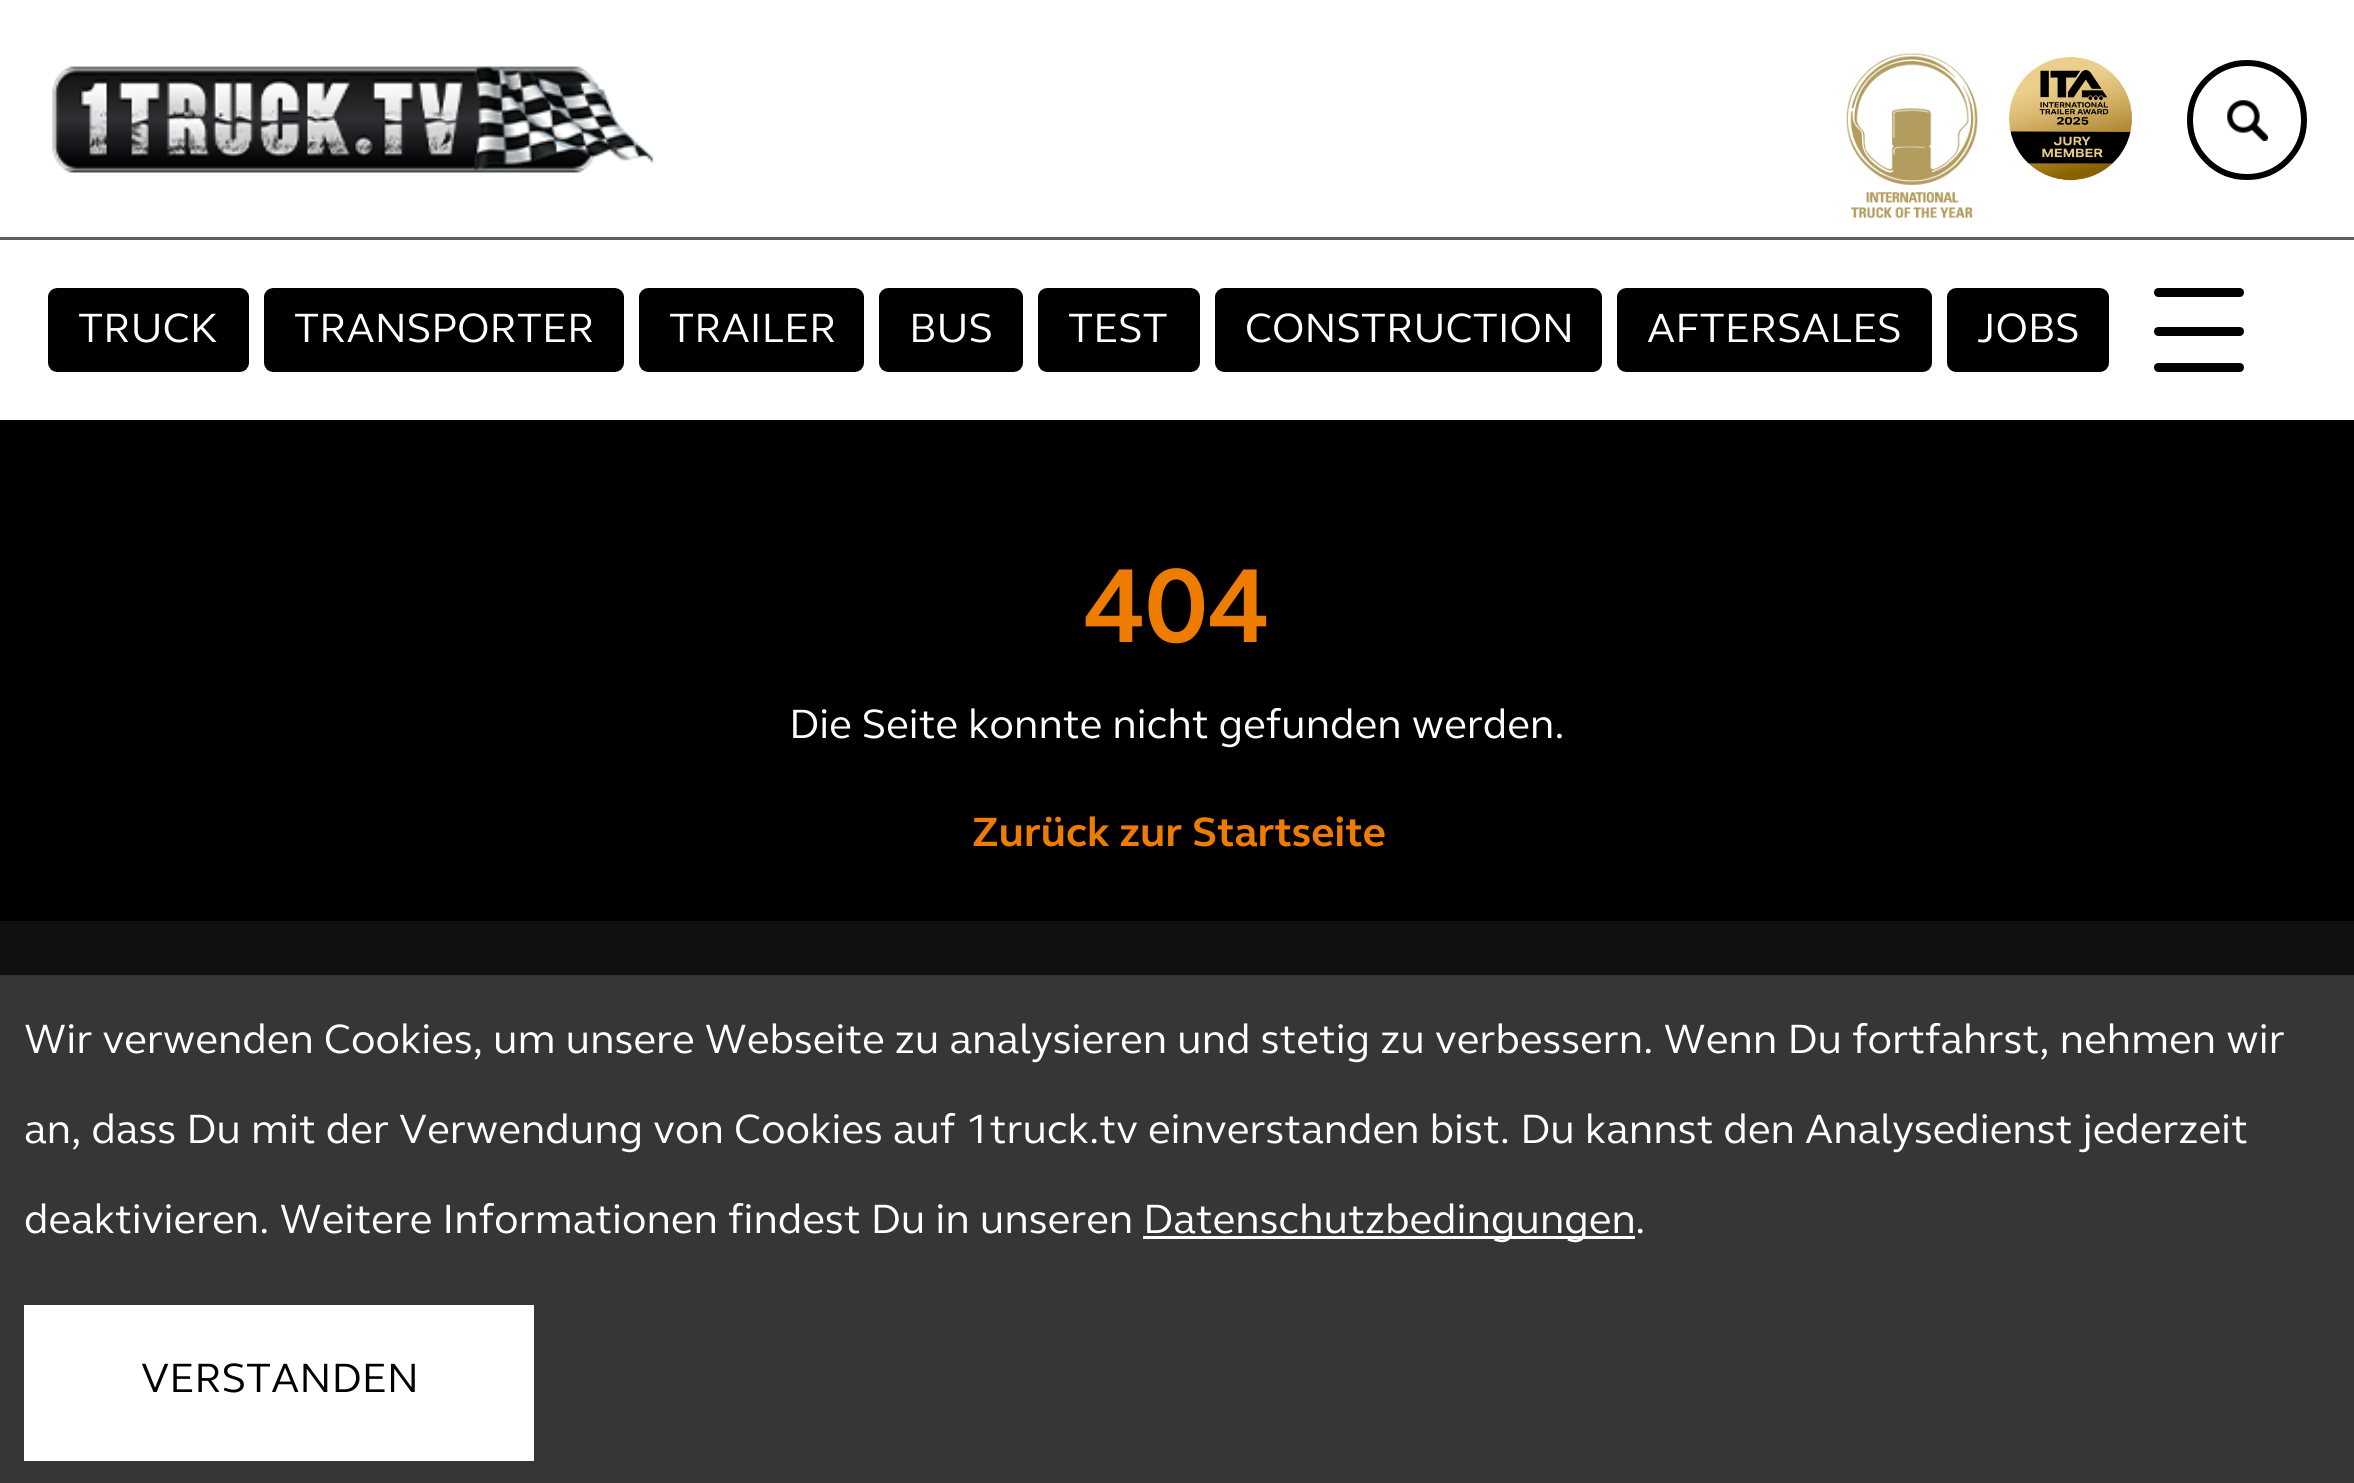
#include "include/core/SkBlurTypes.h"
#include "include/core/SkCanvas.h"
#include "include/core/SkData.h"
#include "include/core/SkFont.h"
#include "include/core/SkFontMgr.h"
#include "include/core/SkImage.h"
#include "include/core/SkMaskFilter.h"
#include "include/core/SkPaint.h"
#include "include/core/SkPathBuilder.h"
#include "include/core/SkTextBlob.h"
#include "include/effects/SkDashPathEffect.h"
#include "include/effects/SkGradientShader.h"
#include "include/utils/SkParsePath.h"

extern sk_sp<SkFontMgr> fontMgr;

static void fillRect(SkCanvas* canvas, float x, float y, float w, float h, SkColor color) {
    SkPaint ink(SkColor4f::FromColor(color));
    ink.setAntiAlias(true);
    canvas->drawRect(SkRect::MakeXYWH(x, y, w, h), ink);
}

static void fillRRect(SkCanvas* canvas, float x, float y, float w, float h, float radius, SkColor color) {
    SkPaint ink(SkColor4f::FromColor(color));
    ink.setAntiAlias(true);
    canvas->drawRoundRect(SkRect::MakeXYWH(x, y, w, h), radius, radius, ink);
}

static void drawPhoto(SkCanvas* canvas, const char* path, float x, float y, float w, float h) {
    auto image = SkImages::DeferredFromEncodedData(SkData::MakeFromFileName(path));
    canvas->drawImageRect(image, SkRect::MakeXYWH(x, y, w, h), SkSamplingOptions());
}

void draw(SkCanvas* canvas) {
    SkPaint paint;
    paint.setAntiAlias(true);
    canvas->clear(0xFF0F1111);
    fillRect(canvas, 0, 0, 2354, 420, 0xFFFFFFFF);
    fillRect(canvas, 0, 237, 2354, 3, 0xFF5F5F5F);
    drawPhoto(canvas, "assets/img1.png", 51, 66, 604, 107);
    drawPhoto(canvas, "assets/img2.png", 1846, 53, 132, 166);
    drawPhoto(canvas, "assets/img3.png", 2009, 57, 124, 124);
    paint.setStroke(true);
    paint.setStrokeWidth(6);
    paint.setColor(0xFF000000);
    canvas->drawCircle(2247, 120, 57, paint);
    drawPhoto(canvas, "assets/img4.png", 2227, 100, 41, 41);
    fillRRect(canvas, 48, 288, 201, 84, 9, 0xFF000000);
    drawPhoto(canvas, "assets/img5.png", 79, 313, 138, 30);
    fillRRect(canvas, 264, 288, 360, 84, 9, 0xFF000000);
    drawPhoto(canvas, "assets/img6.png", 295, 313, 298, 30);
    fillRRect(canvas, 639, 288, 225, 84, 9, 0xFF000000);
    drawPhoto(canvas, "assets/img7.png", 670, 313, 165, 29);
    fillRRect(canvas, 879, 288, 144, 84, 9, 0xFF000000);
    drawPhoto(canvas, "assets/img8.png", 913, 313, 78, 30);
    fillRRect(canvas, 1038, 288, 162, 84, 9, 0xFF000000);
    drawPhoto(canvas, "assets/img9.png", 1069, 313, 98, 30);
    fillRRect(canvas, 1215, 288, 387, 84, 9, 0xFF000000);
    drawPhoto(canvas, "assets/img10.png", 1247, 313, 323, 30);
    fillRRect(canvas, 1617, 288, 315, 84, 9, 0xFF000000);
    drawPhoto(canvas, "assets/img11.png", 1647, 313, 253, 30);
    fillRRect(canvas, 1947, 288, 162, 84, 9, 0xFF000000);
    drawPhoto(canvas, "assets/img12.png", 1978, 313, 100, 30);
    fillRRect(canvas, 2154, 288, 90, 9, 4.5f, 0xFF000000);
    fillRRect(canvas, 2154, 327, 90, 9, 4.5f, 0xFF000000);
    fillRRect(canvas, 2154, 363, 90, 9, 4.5f, 0xFF000000);
    fillRect(canvas, 0, 420, 2354, 501, 0xFF000000);
    drawPhoto(canvas, "assets/img13.png", 1085, 568, 182, 76);
    drawPhoto(canvas, "assets/img14.png", 793, 707, 769, 41);
    drawPhoto(canvas, "assets/img15.png", 973, 816, 412, 31);
    fillRect(canvas, 0, 975, 2354, 508, 0xFF363636);
    drawPhoto(canvas, "assets/img16.png", 25, 1022, 2259, 41);
    drawPhoto(canvas, "assets/img17.png", 25, 1112, 2222, 41);
    drawPhoto(canvas, "assets/img18.png", 25, 1202, 1106, 32);
    fillRect(canvas, 1143, 1236, 492, 3, 0xFFFFFFFF);
    drawPhoto(canvas, "assets/img19.png", 1147, 1203, 486, 40);
    drawPhoto(canvas, "assets/img20.png", 1637, 1228, 6, 6);
    fillRect(canvas, 24, 1305, 510, 156, 0xFFFFFFFF);
    drawPhoto(canvas, "assets/img21.png", 141, 1363, 274, 30);
}
